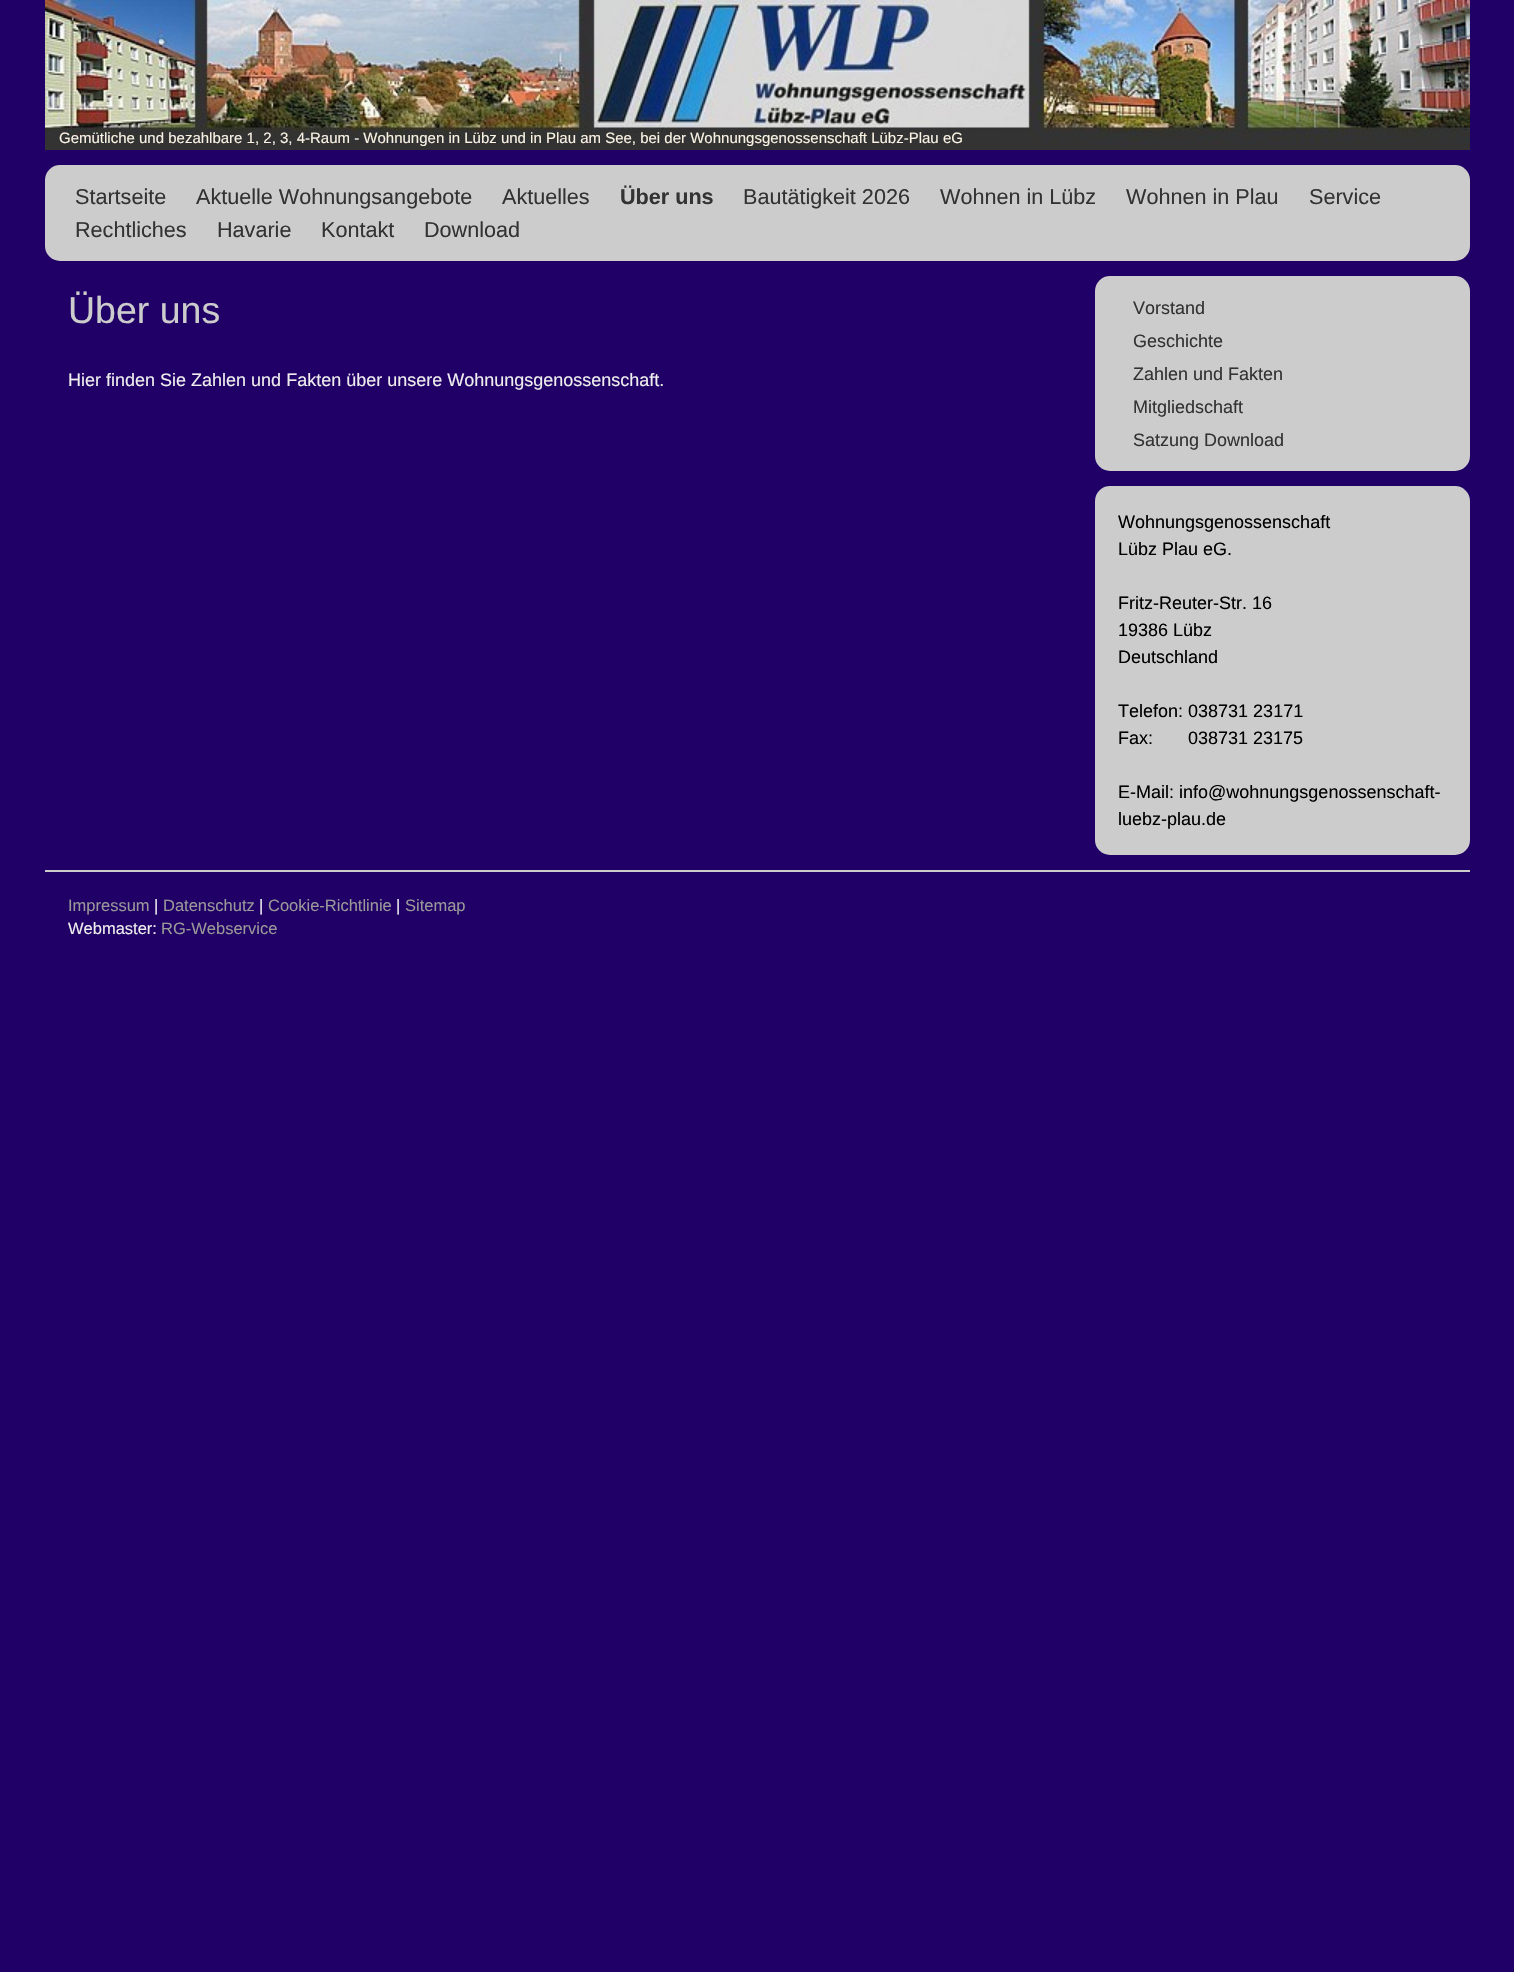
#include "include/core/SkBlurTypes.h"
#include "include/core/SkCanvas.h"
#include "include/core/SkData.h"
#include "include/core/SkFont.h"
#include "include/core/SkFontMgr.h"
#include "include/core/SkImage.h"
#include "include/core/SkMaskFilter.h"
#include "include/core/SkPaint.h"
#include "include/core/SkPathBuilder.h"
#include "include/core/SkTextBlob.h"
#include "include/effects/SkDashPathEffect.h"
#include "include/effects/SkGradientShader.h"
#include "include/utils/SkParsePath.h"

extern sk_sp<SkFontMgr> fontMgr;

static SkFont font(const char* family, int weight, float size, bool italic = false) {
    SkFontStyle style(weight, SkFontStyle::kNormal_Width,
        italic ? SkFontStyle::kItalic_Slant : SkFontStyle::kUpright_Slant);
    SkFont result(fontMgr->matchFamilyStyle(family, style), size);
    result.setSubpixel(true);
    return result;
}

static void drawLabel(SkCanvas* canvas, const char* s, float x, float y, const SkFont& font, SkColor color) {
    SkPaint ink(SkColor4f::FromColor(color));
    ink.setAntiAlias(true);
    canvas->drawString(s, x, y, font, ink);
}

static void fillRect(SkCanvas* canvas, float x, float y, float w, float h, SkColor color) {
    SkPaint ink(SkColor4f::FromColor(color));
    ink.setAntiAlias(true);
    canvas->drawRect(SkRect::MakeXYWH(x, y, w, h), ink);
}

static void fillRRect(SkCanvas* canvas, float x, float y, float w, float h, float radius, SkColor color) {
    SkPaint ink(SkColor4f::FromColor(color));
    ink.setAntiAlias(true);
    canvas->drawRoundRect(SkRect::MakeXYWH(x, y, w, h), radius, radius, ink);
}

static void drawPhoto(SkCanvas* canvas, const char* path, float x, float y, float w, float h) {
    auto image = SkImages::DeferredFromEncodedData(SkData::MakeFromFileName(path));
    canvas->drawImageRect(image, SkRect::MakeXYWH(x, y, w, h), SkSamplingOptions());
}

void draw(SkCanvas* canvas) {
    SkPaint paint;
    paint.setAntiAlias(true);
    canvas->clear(0xFF200066);
    drawPhoto(canvas, "assets/img1.png", 45, 0, 1425, 150);
    SkFont font1 = font("Liberation Sans", 400, 15);
    drawLabel(canvas, "Gemütliche und bezahlbare 1, 2, 3, 4-Raum - Wohnungen in Lübz und in Plau am See, bei der Wohnungsgenossenschaft Lübz-Plau eG", 59, 143, font1, 0xFFFAF3E4);
    fillRRect(canvas, 45, 165, 1425, 96, 15, 0xFFCCCCCC);
    SkFont font2 = font("Liberation Sans", 400, 21.6f);
    drawLabel(canvas, "Startseite", 75, 204, font2, 0xFF333333);
    drawLabel(canvas, "Aktuelle Wohnungsangebote", 196, 204, font2, 0xFF333333);
    drawLabel(canvas, "Aktuelles", 502, 204, font2, 0xFF333333);
    SkFont font3 = font("Liberation Sans", 700, 21.6f);
    drawLabel(canvas, "Über uns", 620, 204, font3, 0xFF333333);
    drawLabel(canvas, "Bautätigkeit 2026", 743, 204, font2, 0xFF333333);
    drawLabel(canvas, "Wohnen in Lübz", 940, 204, font2, 0xFF333333);
    drawLabel(canvas, "Wohnen in Plau", 1126, 204, font2, 0xFF333333);
    drawLabel(canvas, "Service", 1309, 204, font2, 0xFF333333);
    drawLabel(canvas, "Rechtliches", 75, 237, font2, 0xFF333333);
    drawLabel(canvas, "Havarie", 217, 237, font2, 0xFF333333);
    drawLabel(canvas, "Kontakt", 321, 237, font2, 0xFF333333);
    drawLabel(canvas, "Download", 424, 237, font2, 0xFF333333);
    SkFont font4 = font("Liberation Sans", 400, 37.5f);
    drawLabel(canvas, "Über uns", 68, 323, font4, 0xFFCCCCCC);
    SkFont font5 = font("Liberation Sans", 400, 18);
    drawLabel(canvas, "Hier finden Sie Zahlen und Fakten über unsere Wohnungsgenossenschaft.", 68, 386, font5, 0xFFEEEEEE);
    fillRRect(canvas, 1095, 276, 375, 195, 15, 0xFFCCCCCC);
    drawLabel(canvas, "Vorstand", 1133, 314, font5, 0xFF333333);
    drawLabel(canvas, "Geschichte", 1133, 347, font5, 0xFF333333);
    drawLabel(canvas, "Zahlen und Fakten", 1133, 380, font5, 0xFF333333);
    drawLabel(canvas, "Mitgliedschaft", 1133, 413, font5, 0xFF333333);
    drawLabel(canvas, "Satzung Download", 1133, 446, font5, 0xFF333333);
    fillRRect(canvas, 1095, 486, 375, 369, 15, 0xFFCCCCCC);
    drawLabel(canvas, "Wohnungsgenossenschaft", 1118, 528, font5, 0xFF000000);
    drawLabel(canvas, "Lübz Plau eG.", 1118, 555, font5, 0xFF000000);
    drawLabel(canvas, "Fritz-Reuter-Str. 16", 1118, 609, font5, 0xFF000000);
    drawLabel(canvas, "19386 Lübz", 1118, 636, font5, 0xFF000000);
    drawLabel(canvas, "Deutschland", 1118, 663, font5, 0xFF000000);
    drawLabel(canvas, "Telefon: 038731 23171", 1118, 717, font5, 0xFF000000);
    drawLabel(canvas, "Fax:       038731 23175", 1118, 744, font5, 0xFF000000);
    drawLabel(canvas, "E-Mail: info@wohnungsgenossenschaft-", 1118, 798, font5, 0xFF000000);
    drawLabel(canvas, "luebz-plau.de", 1118, 825, font5, 0xFF000000);
    fillRect(canvas, 45, 870, 1425, 2, 0xFFCCCCCC);
    SkFont font6 = font("Liberation Sans", 400, 16.5f);
    drawLabel(canvas, "Impressum", 68, 911, font6, 0xFF999999);
    drawLabel(canvas, "|", 154, 911, font6, 0xFFEEEEEE);
    drawLabel(canvas, "Datenschutz", 163, 911, font6, 0xFF999999);
    drawLabel(canvas, "|", 259, 911, font6, 0xFFEEEEEE);
    drawLabel(canvas, "Cookie-Richtlinie", 268, 911, font6, 0xFF999999);
    drawLabel(canvas, "|", 396, 911, font6, 0xFFEEEEEE);
    drawLabel(canvas, "Sitemap", 405, 911, font6, 0xFF999999);
    drawLabel(canvas, "Webmaster:", 68, 934, font6, 0xFFEEEEEE);
    drawLabel(canvas, "RG-Webservice", 161, 934, font6, 0xFF999999);
}
